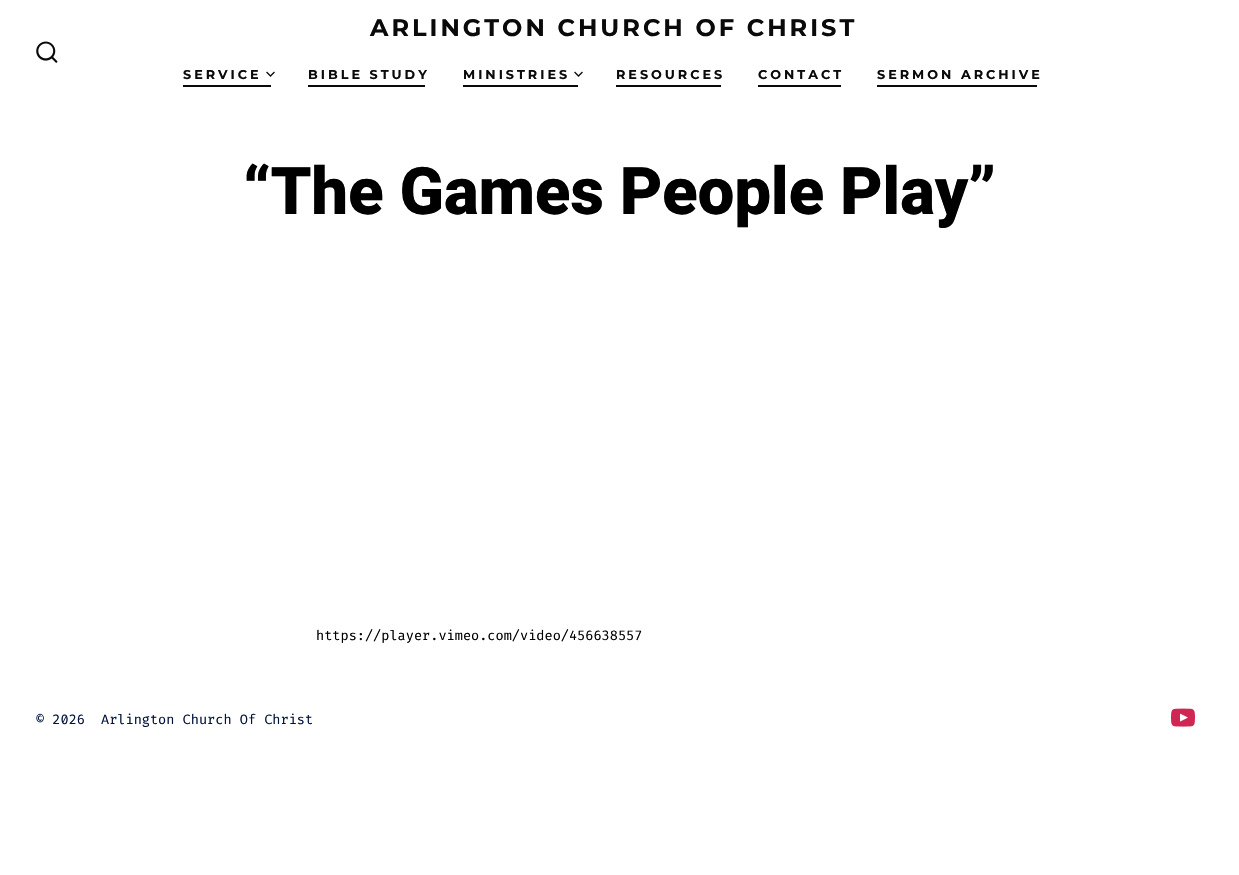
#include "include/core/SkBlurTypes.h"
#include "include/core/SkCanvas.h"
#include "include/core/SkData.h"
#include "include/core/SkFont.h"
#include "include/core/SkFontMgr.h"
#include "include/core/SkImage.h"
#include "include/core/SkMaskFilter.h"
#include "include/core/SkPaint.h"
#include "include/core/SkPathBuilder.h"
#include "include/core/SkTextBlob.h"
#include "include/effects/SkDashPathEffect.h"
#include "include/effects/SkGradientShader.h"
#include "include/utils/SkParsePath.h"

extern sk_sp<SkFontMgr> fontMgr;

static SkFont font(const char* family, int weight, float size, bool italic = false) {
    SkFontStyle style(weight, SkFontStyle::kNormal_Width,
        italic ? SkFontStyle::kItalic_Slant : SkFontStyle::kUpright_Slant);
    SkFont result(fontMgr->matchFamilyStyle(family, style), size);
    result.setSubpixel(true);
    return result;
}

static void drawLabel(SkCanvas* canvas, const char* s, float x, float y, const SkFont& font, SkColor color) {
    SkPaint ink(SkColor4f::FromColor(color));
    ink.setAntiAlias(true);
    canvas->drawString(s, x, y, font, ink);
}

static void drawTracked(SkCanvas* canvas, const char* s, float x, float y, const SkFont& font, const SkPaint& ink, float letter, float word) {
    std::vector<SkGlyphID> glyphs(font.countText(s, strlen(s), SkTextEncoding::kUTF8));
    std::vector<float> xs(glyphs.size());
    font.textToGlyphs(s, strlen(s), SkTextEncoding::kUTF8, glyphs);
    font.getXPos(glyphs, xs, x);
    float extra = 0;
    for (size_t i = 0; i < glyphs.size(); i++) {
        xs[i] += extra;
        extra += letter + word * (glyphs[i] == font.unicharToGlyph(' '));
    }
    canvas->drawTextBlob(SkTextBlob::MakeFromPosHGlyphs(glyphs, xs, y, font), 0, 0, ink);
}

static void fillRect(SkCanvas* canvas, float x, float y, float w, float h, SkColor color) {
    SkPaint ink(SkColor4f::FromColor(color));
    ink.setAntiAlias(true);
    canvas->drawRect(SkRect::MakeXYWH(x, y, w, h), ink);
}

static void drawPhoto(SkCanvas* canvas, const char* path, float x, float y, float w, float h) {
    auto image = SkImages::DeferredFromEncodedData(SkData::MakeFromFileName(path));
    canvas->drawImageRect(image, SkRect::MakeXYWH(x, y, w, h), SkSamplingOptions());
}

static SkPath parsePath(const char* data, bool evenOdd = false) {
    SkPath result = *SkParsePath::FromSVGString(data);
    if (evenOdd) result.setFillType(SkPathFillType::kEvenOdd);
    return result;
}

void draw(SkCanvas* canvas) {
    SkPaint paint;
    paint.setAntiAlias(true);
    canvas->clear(0xFFFFFFFF);
    drawPhoto(canvas, "assets/img1.png", 36, 41, 22, 22);
    SkFont font1 = font("Montserrat", 700, 24);
    paint.setColor(0xFF0A0A0A);
    drawTracked(canvas, "ARLINGTON CHURCH OF CHRIST", 370, 36, font1, paint, 3, 0);
    SkFont font2 = font("Montserrat", 700, 12.75f);
    drawTracked(canvas, "SERVICE", 183, 79, font2, paint, 3, 0);
    paint.setStroke(true);
    paint.setStrokeWidth(1.3f);
    paint.setStrokeCap(SkPaint::kSquare_Cap);
    canvas->drawPath(parsePath("M267 72.5L270.5 76L274 72.5"), paint);
    fillRect(canvas, 183, 85, 88, 2, 0xFF0A0A0A);
    paint.setStroke(false);
    drawTracked(canvas, "BIBLE STUDY", 308, 79, font2, paint, 3, 0);
    fillRect(canvas, 308, 85, 117, 2, 0xFF0A0A0A);
    drawTracked(canvas, "MINISTRIES", 463, 79, font2, paint, 3, 0);
    paint.setStroke(true);
    canvas->drawPath(parsePath("M575 72.5L578.5 76L582 72.5"), paint);
    fillRect(canvas, 463, 85, 115, 2, 0xFF0A0A0A);
    paint.setStroke(false);
    drawTracked(canvas, "RESOURCES", 616, 79, font2, paint, 3, 0);
    fillRect(canvas, 616, 85, 105, 2, 0xFF0A0A0A);
    drawTracked(canvas, "CONTACT", 758, 79, font2, paint, 3, 0);
    fillRect(canvas, 758, 85, 83, 2, 0xFF0A0A0A);
    drawTracked(canvas, "SERMON ARCHIVE", 877, 79, font2, paint, 3, 0);
    fillRect(canvas, 877, 85, 160, 2, 0xFF0A0A0A);
    SkFont font3 = font("Heebo", 800, 65.6f);
    paint.setColor(0xFF000000);
    drawTracked(canvas, "“The Games People Play”", 243, 214, font3, paint, -0.3f, 0);
    SkFont font4 = font("Fira Code", 400, 13.6f);
    drawLabel(canvas, "https://player.vimeo.com/video/456638557", 316, 640, font4, 0xFF000000);
    drawLabel(canvas, "© 2026", 36, 724, font4, 0xFF01133C);
    drawLabel(canvas, "Arlington Church Of Christ", 101, 724, font4, 0xFF01133C);
    drawPhoto(canvas, "assets/img2.png", 1171, 708, 24, 19);
}
